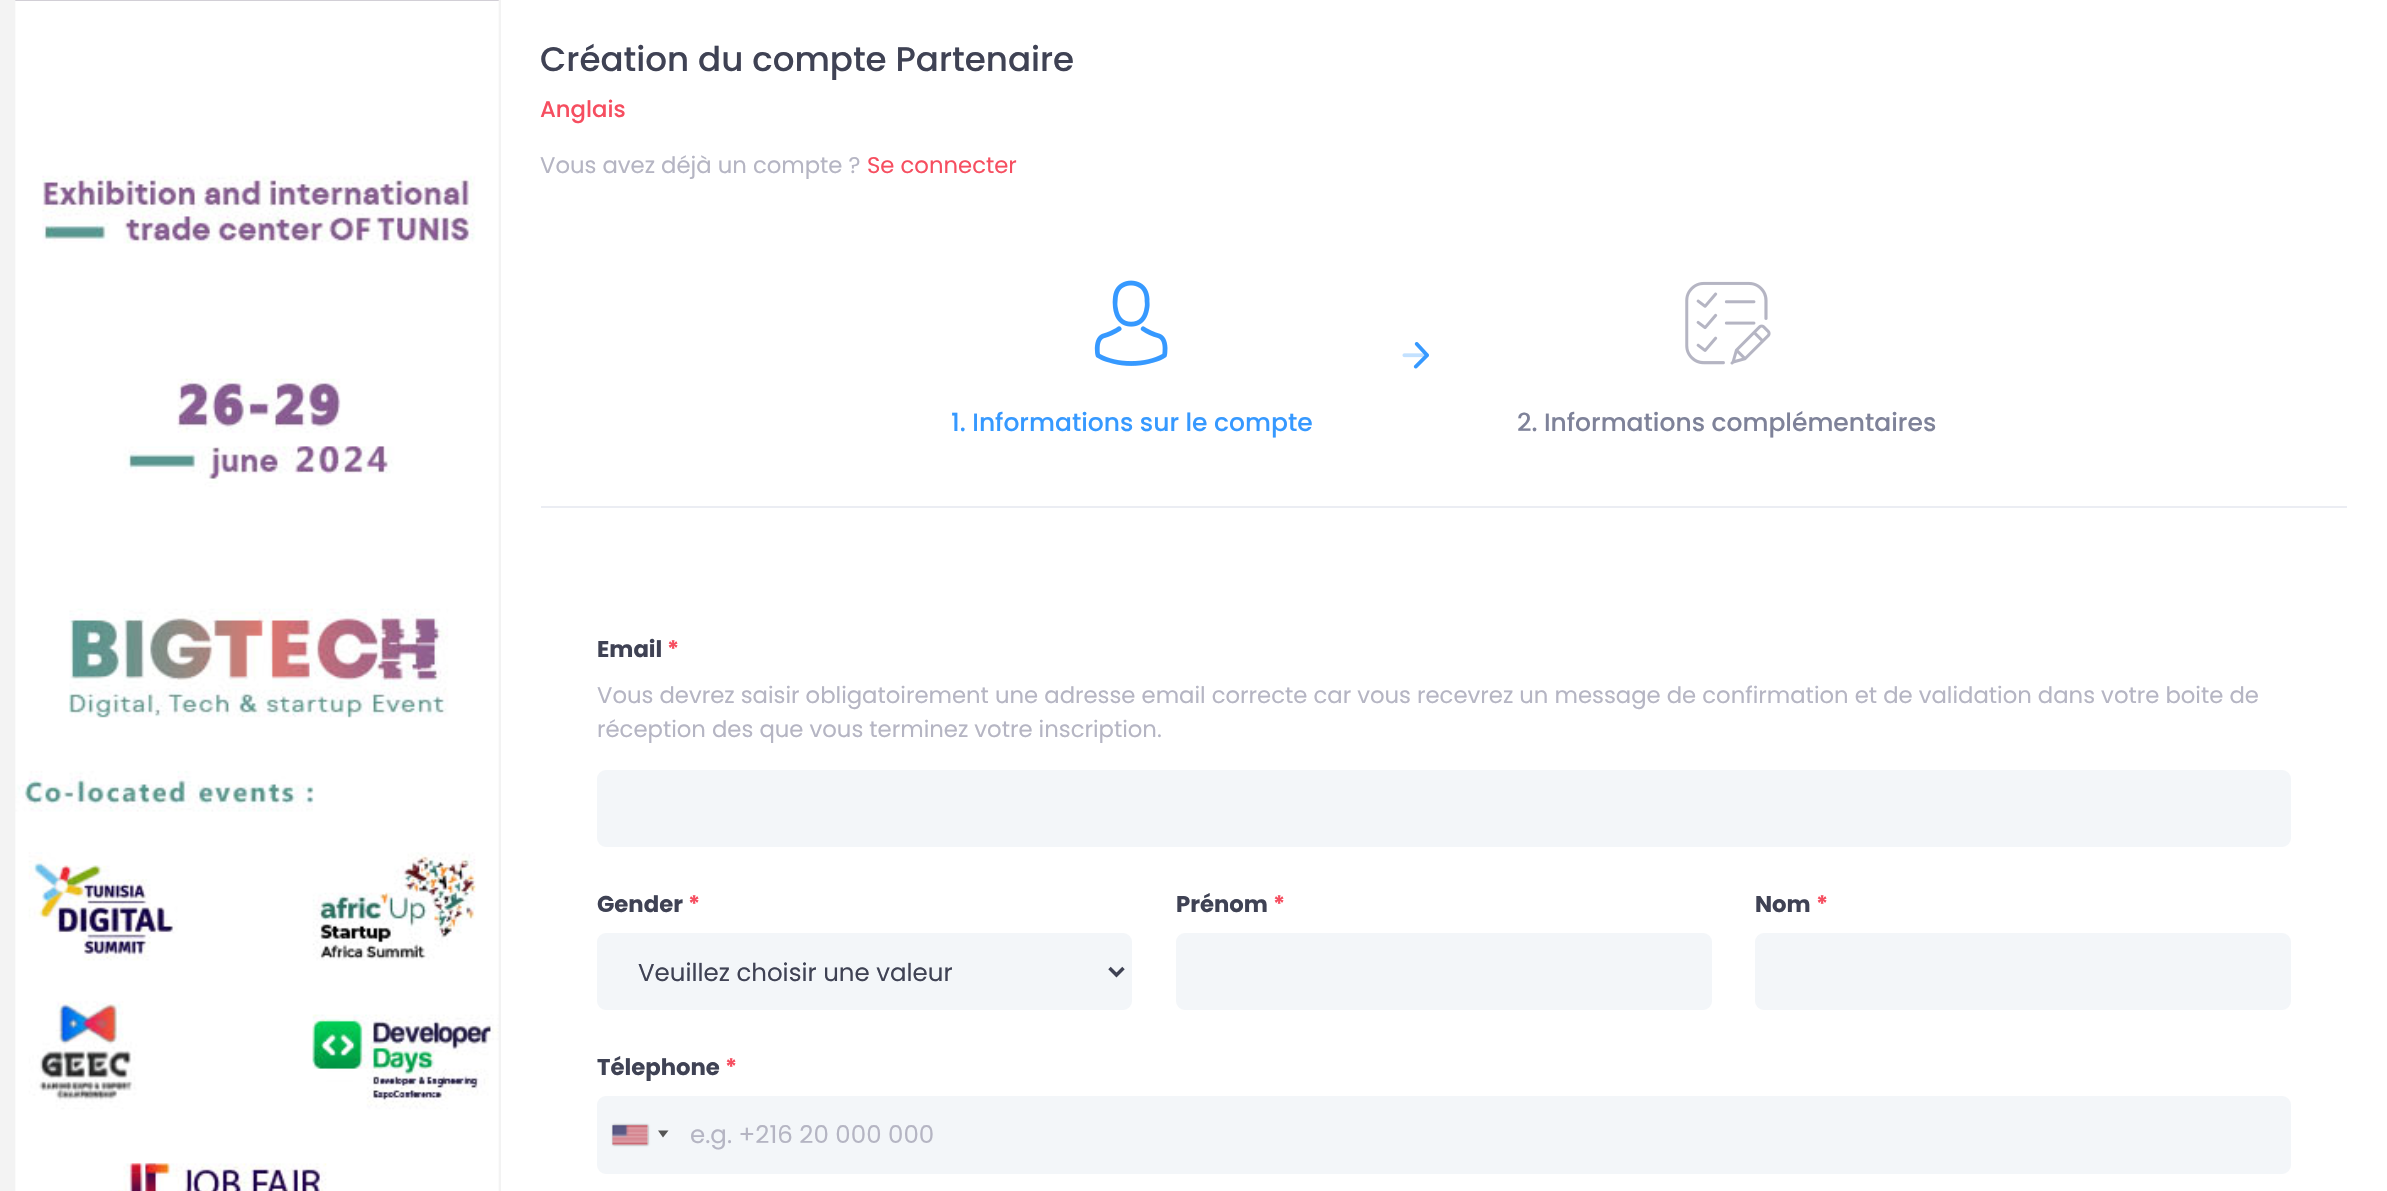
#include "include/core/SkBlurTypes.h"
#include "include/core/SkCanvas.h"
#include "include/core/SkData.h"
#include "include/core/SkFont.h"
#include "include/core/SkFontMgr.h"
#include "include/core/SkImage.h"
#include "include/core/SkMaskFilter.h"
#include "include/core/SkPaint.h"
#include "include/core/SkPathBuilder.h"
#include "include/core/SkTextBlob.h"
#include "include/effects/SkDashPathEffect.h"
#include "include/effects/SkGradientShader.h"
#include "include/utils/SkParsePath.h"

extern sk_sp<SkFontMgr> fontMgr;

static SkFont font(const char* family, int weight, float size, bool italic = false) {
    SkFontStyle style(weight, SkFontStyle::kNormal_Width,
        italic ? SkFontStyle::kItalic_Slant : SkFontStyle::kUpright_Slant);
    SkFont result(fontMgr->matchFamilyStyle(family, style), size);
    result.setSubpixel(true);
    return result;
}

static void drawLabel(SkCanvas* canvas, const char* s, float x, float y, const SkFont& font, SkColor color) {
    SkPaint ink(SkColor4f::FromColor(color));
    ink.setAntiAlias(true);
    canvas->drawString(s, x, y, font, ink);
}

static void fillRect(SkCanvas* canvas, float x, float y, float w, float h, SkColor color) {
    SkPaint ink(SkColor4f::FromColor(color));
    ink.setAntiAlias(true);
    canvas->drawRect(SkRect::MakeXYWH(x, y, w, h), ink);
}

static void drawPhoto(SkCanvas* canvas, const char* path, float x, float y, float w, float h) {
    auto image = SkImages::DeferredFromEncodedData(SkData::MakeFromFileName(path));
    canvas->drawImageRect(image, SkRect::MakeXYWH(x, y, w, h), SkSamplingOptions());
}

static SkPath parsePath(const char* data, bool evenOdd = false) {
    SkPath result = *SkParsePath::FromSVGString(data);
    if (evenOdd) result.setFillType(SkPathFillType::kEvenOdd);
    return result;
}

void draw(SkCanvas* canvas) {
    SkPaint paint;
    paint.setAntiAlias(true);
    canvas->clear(0xFFFFFFFF);
    fillRect(canvas, 0, 0, 501, 1191, 0xFFF3F3F3);
    drawPhoto(canvas, "assets/img1.png", 15, 0, 484, 1191);
    SkFont font1 = font("Poppins", 500, 34.1f);
    drawLabel(canvas, "Création du compte Partenaire", 540, 71, font1, 0xFF3F4254);
    SkFont font2 = font("Poppins", 500, 22.75f);
    drawLabel(canvas, "Anglais", 540, 117, font2, 0xFFF64E60);
    SkFont font3 = font("Poppins", 400, 22.75f);
    drawLabel(canvas, "Vous avez déjà un compte ?", 540, 173, font3, 0xFFB5B5C3);
    drawLabel(canvas, "Se connecter", 867, 173, font3, 0xFFF64E60);
    fillRect(canvas, 541, 506, 1806, 2, 0xFFEBEDF3);
    drawPhoto(canvas, "assets/img2.png", 1402, 342, 27, 27);
    drawPhoto(canvas, "assets/img3.png", 1094, 280, 74, 86);
    SkFont font4 = font("Poppins", 500, 25);
    drawLabel(canvas, "1. Informations sur le compte", 951, 431, font4, 0xFF3699FF);
    drawPhoto(canvas, "assets/img4.png", 1685, 281, 86, 84);
    drawLabel(canvas, "2. Informations complémentaires", 1517, 431, font4, 0xFF7E8299);
    SkFont font5 = font("Poppins", 700, 22.75f);
    drawLabel(canvas, "Email", 597, 657, font5, 0xFF3F4254);
    drawLabel(canvas, "*", 667, 657, font5, 0xFFF64E60);
    drawLabel(canvas, "Vous devrez saisir obligatoirement une adresse email correcte car vous recevrez un message de confirmation et de validation dans votre boite de", 597, 703, font3, 0xFFB5B5C3);
    drawLabel(canvas, "réception des que vous terminez votre inscription.", 597, 737, font3, 0xFFB5B5C3);
    paint.setColor(0xFFF3F6F9);
    canvas->drawRoundRect(SkRect::MakeXYWH(598, 771, 1692, 75), 8, 8, paint);
    paint.setStroke(true);
    paint.setStrokeWidth(2);
    canvas->drawRoundRect(SkRect::MakeXYWH(598, 771, 1692, 75), 8, 8, paint);
    drawLabel(canvas, "Gender", 597, 912, font5, 0xFF3F4254);
    drawLabel(canvas, "*", 688, 912, font5, 0xFFF64E60);
    paint.setStroke(false);
    canvas->drawRoundRect(SkRect::MakeXYWH(598, 934, 533, 75), 8, 8, paint);
    paint.setStroke(true);
    canvas->drawRoundRect(SkRect::MakeXYWH(598, 934, 533, 75), 8, 8, paint);
    paint.setStrokeWidth(3.5f);
    paint.setColor(0xFF3F4254);
    canvas->drawPath(parsePath("M1109.5 968L1116.5 975L1123.5 968"), paint);
    SkFont font6 = font("Poppins", 400, 24.5f);
    drawLabel(canvas, "Veuillez choisir une valeur", 638, 981, font6, 0xFF3F4254);
    drawLabel(canvas, "Prénom", 1176, 912, font5, 0xFF3F4254);
    drawLabel(canvas, "*", 1273, 912, font5, 0xFFF64E60);
    paint.setStroke(false);
    paint.setColor(0xFFF3F6F9);
    canvas->drawRoundRect(SkRect::MakeXYWH(1177, 934, 534, 75), 8, 8, paint);
    paint.setStroke(true);
    paint.setStrokeWidth(2);
    canvas->drawRoundRect(SkRect::MakeXYWH(1177, 934, 534, 75), 8, 8, paint);
    drawLabel(canvas, "Nom", 1755, 912, font5, 0xFF3F4254);
    drawLabel(canvas, "*", 1816, 912, font5, 0xFFF64E60);
    paint.setStroke(false);
    canvas->drawRoundRect(SkRect::MakeXYWH(1756, 934, 534, 75), 8, 8, paint);
    paint.setStroke(true);
    canvas->drawRoundRect(SkRect::MakeXYWH(1756, 934, 534, 75), 8, 8, paint);
    drawLabel(canvas, "Télephone", 597, 1075, font5, 0xFF3F4254);
    drawLabel(canvas, "*", 725, 1075, font5, 0xFFF64E60);
    paint.setStroke(false);
    canvas->drawRoundRect(SkRect::MakeXYWH(598, 1097, 1692, 76), 8, 8, paint);
    paint.setStroke(true);
    canvas->drawRoundRect(SkRect::MakeXYWH(598, 1097, 1692, 76), 8, 8, paint);
    paint.setStroke(false);
    paint.setColor(0xFF888888);
    paint.setMaskFilter(SkMaskFilter::MakeBlur(kNormal_SkBlurStyle, 1));
    canvas->drawRect(SkRect::MakeXYWH(613, 1125, 35, 20), paint);
    paint.setMaskFilter(nullptr);
    fillRect(canvas, 613, 1125, 35, 20, 0xFFDBDBDB);
    drawPhoto(canvas, "assets/img5.png", 612, 1125, 36, 20);
    paint.setColor(0xFF555555);
    canvas->drawPath(parsePath("M658 1130.5H668.5L663 1137.5Z"), paint);
    drawLabel(canvas, "e.g. +216 20 000 000", 690, 1143, font6, 0xFFB5B5C3);
}
